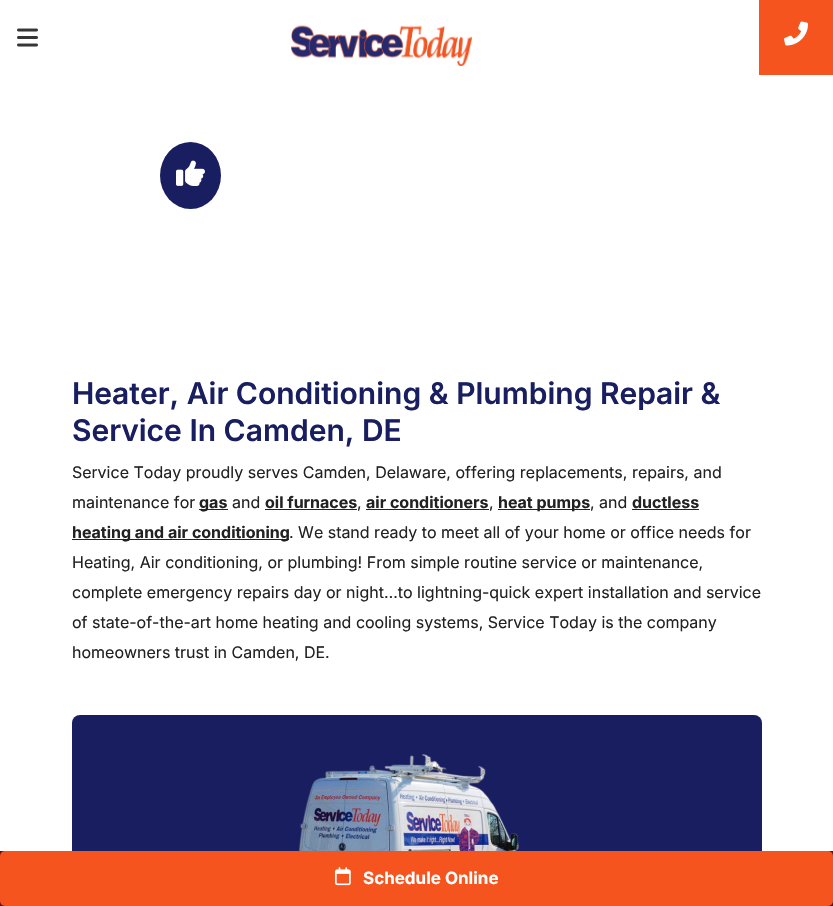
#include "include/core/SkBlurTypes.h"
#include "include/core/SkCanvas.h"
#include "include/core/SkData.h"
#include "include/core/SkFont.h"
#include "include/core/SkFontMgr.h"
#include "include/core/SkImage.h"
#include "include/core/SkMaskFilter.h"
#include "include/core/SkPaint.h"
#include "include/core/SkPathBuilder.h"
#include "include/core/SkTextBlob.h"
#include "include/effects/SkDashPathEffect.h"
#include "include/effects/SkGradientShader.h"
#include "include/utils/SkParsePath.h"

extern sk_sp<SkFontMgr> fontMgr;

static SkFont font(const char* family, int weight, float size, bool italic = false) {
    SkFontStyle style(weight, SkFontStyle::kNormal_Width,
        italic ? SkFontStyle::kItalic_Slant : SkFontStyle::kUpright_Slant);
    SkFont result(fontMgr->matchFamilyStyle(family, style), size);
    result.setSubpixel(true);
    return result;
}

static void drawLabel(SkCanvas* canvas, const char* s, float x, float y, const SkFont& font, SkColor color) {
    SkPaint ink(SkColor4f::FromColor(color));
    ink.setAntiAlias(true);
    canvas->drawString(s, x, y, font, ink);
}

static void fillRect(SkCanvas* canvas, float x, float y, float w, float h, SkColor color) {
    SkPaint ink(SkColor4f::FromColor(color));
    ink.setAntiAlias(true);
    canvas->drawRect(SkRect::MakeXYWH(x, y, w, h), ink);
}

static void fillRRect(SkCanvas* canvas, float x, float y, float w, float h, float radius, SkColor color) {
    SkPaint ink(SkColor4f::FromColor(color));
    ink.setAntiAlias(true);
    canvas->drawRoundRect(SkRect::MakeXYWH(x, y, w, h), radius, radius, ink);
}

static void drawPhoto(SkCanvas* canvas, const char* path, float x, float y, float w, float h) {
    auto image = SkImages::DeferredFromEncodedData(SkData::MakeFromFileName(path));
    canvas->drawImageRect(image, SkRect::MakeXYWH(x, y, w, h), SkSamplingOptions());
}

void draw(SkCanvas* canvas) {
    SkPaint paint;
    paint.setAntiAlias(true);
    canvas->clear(0xFFFFFFFF);
    drawPhoto(canvas, "assets/img1.png", 17, 28, 21, 19);
    drawPhoto(canvas, "assets/img2.png", 291, 25, 182, 41);
    fillRect(canvas, 759, 0, 74, 75, 0xFFF5541E);
    drawPhoto(canvas, "assets/img3.png", 784, 21, 24, 25);
    paint.setColor(0xFF181E60);
    canvas->drawOval(SkRect::MakeXYWH(160, 142, 61, 67), paint);
    drawPhoto(canvas, "assets/img4.png", 176, 160, 29, 26);
    SkFont font1 = font("Inter", 600, 30);
    drawLabel(canvas, "Heater, Air Conditioning & Plumbing Repair &", 72, 404, font1, 0xFF181E60);
    drawLabel(canvas, "Service In Camden, DE", 72, 441, font1, 0xFF181E60);
    SkFont font2 = font("Inter", 400, 16);
    drawLabel(canvas, "Service Today proudly serves Camden, Delaware, offering replacements, repairs, and", 72, 478, font2, 0xFF222222);
    drawLabel(canvas, "maintenance for", 72, 508, font2, 0xFF222222);
    fillRect(canvas, 199, 509, 29, 1, 0xFF222222);
    SkFont font3 = font("Inter", 700, 16);
    drawLabel(canvas, "gas", 199, 508, font3, 0xFF222222);
    drawLabel(canvas, "and", 232, 508, font2, 0xFF222222);
    drawLabel(canvas, "oil furnaces", 265, 508, font3, 0xFF222222);
    fillRect(canvas, 265, 509, 92, 1, 0xFF222222);
    drawLabel(canvas, ",", 357, 508, font2, 0xFF222222);
    drawLabel(canvas, "air conditioners", 366, 508, font3, 0xFF222222);
    fillRect(canvas, 366, 509, 123, 1, 0xFF222222);
    drawLabel(canvas, ",", 489, 508, font2, 0xFF222222);
    fillRect(canvas, 498, 509, 92, 1, 0xFF222222);
    drawLabel(canvas, "heat pumps", 498, 508, font3, 0xFF222222);
    drawLabel(canvas, ", and", 590, 508, font2, 0xFF222222);
    drawLabel(canvas, "ductless", 632, 508, font3, 0xFF222222);
    fillRect(canvas, 632, 509, 67, 1, 0xFF222222);
    fillRect(canvas, 72, 539, 217, 1, 0xFF222222);
    drawLabel(canvas, "heating and air conditioning", 72, 538, font3, 0xFF222222);
    drawLabel(canvas, ". We stand ready to meet all of your home or office needs for", 289, 538, font2, 0xFF222222);
    drawLabel(canvas, "Heating, Air conditioning, or plumbing! From simple routine service or maintenance,", 72, 568, font2, 0xFF222222);
    drawLabel(canvas, "complete emergency repairs day or night…to lightning-quick expert installation and service", 72, 598, font2, 0xFF222222);
    drawLabel(canvas, "of state-of-the-art home heating and cooling systems, Service Today is the company", 72, 628, font2, 0xFF222222);
    drawLabel(canvas, "homeowners trust in Camden, DE.", 72, 658, font2, 0xFF222222);
    fillRRect(canvas, 72, 715, 690, 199, 8, 0xFF181E60);
    drawPhoto(canvas, "assets/img5.png", 298, 754, 221, 97);
    fillRect(canvas, 0, 851, 833, 55, 0xFF6A0D0A);
    fillRRect(canvas, 0, 851, 833, 55, 5, 0xFFF5541E);
    drawPhoto(canvas, "assets/img6.png", 335, 867, 16, 19);
    SkFont font4 = font("Inter", 700, 17);
    drawLabel(canvas, "Schedule Online", 363, 884, font4, 0xFFFFFFFF);
}
